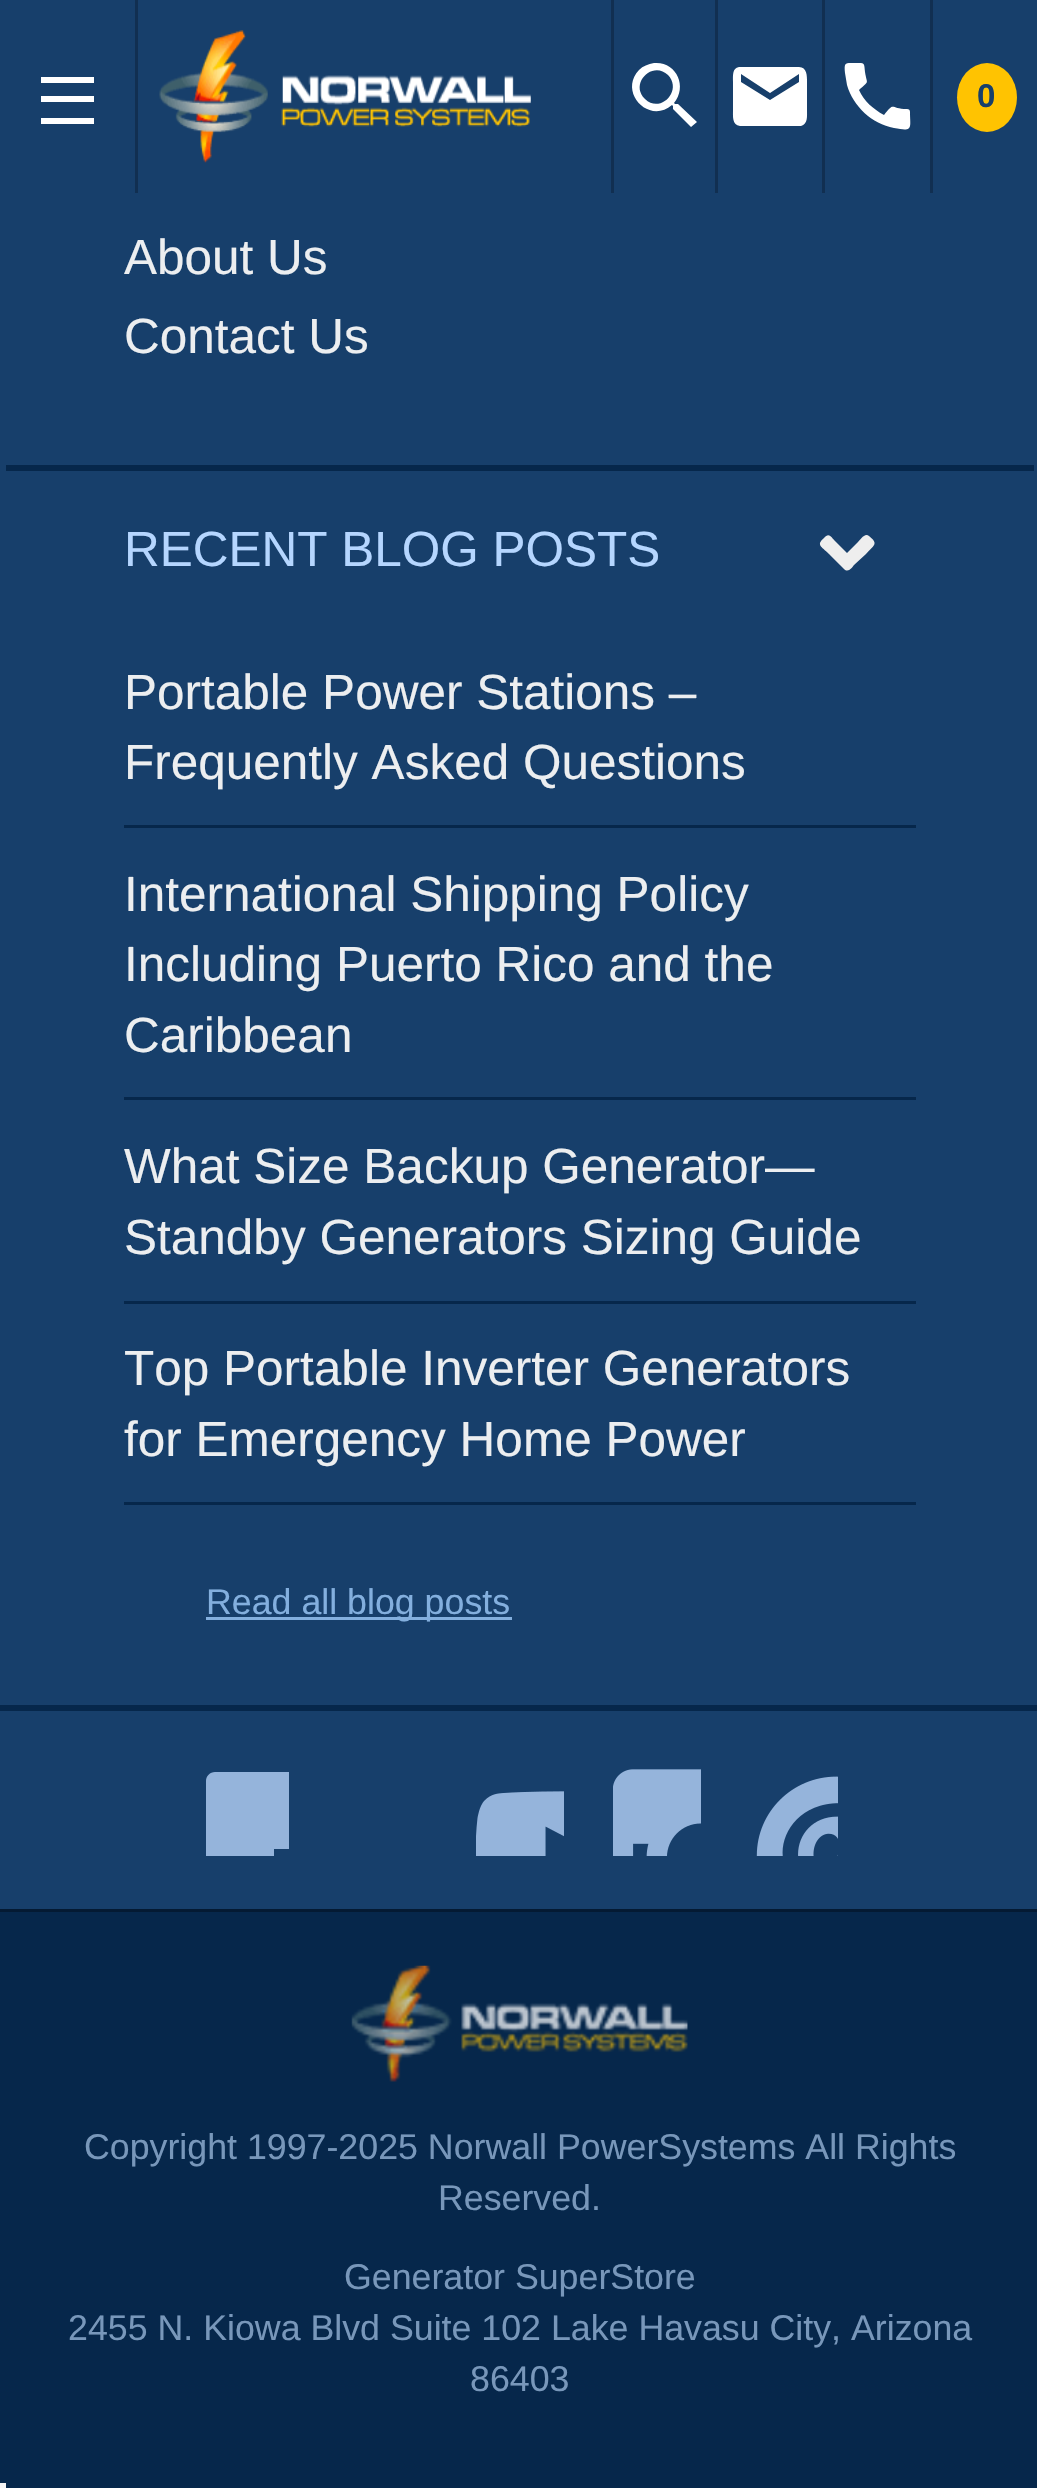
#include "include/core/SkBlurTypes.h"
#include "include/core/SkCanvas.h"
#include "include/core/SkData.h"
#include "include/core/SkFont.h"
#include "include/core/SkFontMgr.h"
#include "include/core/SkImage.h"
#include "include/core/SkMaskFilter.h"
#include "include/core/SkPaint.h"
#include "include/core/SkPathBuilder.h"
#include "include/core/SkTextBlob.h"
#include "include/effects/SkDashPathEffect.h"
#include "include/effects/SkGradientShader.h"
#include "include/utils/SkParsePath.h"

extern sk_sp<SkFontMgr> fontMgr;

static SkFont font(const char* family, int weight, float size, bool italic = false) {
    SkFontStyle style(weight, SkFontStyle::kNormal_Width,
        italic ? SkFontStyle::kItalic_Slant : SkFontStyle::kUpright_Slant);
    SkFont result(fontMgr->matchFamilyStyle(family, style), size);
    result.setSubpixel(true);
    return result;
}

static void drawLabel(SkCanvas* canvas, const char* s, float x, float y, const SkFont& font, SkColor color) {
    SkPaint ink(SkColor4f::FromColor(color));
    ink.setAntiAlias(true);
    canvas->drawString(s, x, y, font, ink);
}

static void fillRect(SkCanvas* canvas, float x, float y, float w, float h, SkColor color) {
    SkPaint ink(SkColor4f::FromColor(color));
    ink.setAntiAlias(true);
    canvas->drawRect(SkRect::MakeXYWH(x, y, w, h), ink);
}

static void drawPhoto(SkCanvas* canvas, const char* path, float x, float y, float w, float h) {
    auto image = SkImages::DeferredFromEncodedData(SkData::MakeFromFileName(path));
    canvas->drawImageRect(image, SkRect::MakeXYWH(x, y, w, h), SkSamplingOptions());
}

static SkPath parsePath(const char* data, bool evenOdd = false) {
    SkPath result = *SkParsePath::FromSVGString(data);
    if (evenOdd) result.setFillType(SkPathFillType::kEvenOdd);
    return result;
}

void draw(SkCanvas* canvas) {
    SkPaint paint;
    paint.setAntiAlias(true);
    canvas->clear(0xFF173F6B);
    fillRect(canvas, 135, 0, 3, 193, 0xFF112F51);
    fillRect(canvas, 41, 96, 53, 6, 0xFFFFFFFF);
    fillRect(canvas, 41, 77, 53, 6, 0xFFFFFFFF);
    fillRect(canvas, 41, 118, 53, 6, 0xFFFFFFFF);
    drawPhoto(canvas, "assets/img1.png", 159, 30, 372, 133);
    fillRect(canvas, 715, 0, 3, 193, 0xFF112F51);
    fillRect(canvas, 611, 0, 3, 193, 0xFF112F51);
    paint.setColor(0xFFFFFFFF);
    canvas->drawPath(parsePath("M645 99C660 114 683 91 668 75C653 60 629 83 645 99ZM678 104L697 122L691 127L673 109V106L672 105C649 125 618 92 639 70C643 66 648 64 654 63C676 61 688 86 674 103L675 104Z"), paint);
    fillRect(canvas, 822, 0, 3, 193, 0xFF112F51);
    canvas->drawPath(parsePath("M799 82V74L770 93L741 74V82L770 100ZM799 67C807 67 807 76 807 82V111C807 116 808 124 801 126H740C732 125 733 116 733 111V82C733 76 732 68 739 67Z"), paint);
    fillRect(canvas, 930, 0, 3, 193, 0xFF112F51);
    canvas->drawPath(parsePath("M907 109C909 109 910 110 910 112C910 128 914 132 894 128C872 124 853 106 847 85L845 73C844 62 845 63 855 63C865 63 864 62 865 72C867 85 870 80 859 90C864 101 873 109 884 115C895 101 890 109 907 109Z"), paint);
    paint.setColor(0xFFFFC301);
    canvas->drawOval(SkRect::MakeXYWH(957, 63, 60, 69), paint);
    SkFont font1 = font("Liberation Sans", 700, 33);
    drawLabel(canvas, "0", 977, 107, font1, 0xFF173F6B);
    fillRect(canvas, 6, 465, 1028, 6, 0xFF06274B);
    SkFont font2 = font("Liberation Sans", 400, 49.5f);
    drawLabel(canvas, "About Us", 124, 274, font2, 0xFFECEEF0);
    drawLabel(canvas, "Contact Us", 124, 353, font2, 0xFFECEEF0);
    fillRect(canvas, 0, 1705, 1037, 6, 0xFF06274B);
    drawLabel(canvas, "RECENT BLOG POSTS", 124, 566, font2, 0xFFB5D6FF);
    paint.setColor(0xFFEEEEEE);
    canvas->drawPath(parsePath("M844 569L829 554C821 546 816 545 824 538C829 532 831 537 836 542L847 553L858 542C860 540 865 532 869 536C879 544 874 545 866 554L854 565C852 568 848 573 844 569Z"), paint);
    fillRect(canvas, 124, 825, 792, 3, 0xFF06274B);
    drawLabel(canvas, "Portable Power Stations –", 124, 709, font2, 0xFFECEEF0);
    drawLabel(canvas, "Frequently Asked Questions", 124, 779, font2, 0xFFECEEF0);
    fillRect(canvas, 124, 1097, 792, 3, 0xFF06274B);
    drawLabel(canvas, "International Shipping Policy", 124, 911, font2, 0xFFECEEF0);
    drawLabel(canvas, "Including Puerto Rico and the", 124, 981, font2, 0xFFECEEF0);
    drawLabel(canvas, "Caribbean", 124, 1052, font2, 0xFFECEEF0);
    fillRect(canvas, 124, 1301, 792, 3, 0xFF06274B);
    drawLabel(canvas, "What Size Backup Generator—", 124, 1183, font2, 0xFFECEEF0);
    drawLabel(canvas, "Standby Generators Sizing Guide", 124, 1254, font2, 0xFFECEEF0);
    fillRect(canvas, 124, 1502, 792, 3, 0xFF06274B);
    drawLabel(canvas, "Top Portable Inverter Generators", 124, 1385, font2, 0xFFECEEF0);
    drawLabel(canvas, "for Emergency Home Power", 124, 1456, font2, 0xFFECEEF0);
    fillRect(canvas, 206, 1617, 306, 3, 0xFF83AFDE);
    SkFont font3 = font("Liberation Sans", 400, 35.75f);
    drawLabel(canvas, "Read all blog posts", 206, 1614, font3, 0xFF83AFDE);
    canvas->save();
    canvas->clipRect(SkRect::MakeXYWH(202, 1769, 87, 87));
    paint.setColor(0xFF95B4DB);
    canvas->drawPath(parsePath("M215 1772C210 1772 206 1776 206 1781V1930C206 1935 210 1939 215 1939H296V1874H274V1849H296C296 1840 295 1831 297 1823C301 1796 327 1795 348 1798V1821H335C324 1821 322 1826 322 1833V1849H348L344 1874H322V1939H365C370 1939 375 1935 375 1930V1781C375 1776 370 1772 365 1772Z"), paint);
    canvas->restore();
    drawPhoto(canvas, "assets/img2.png", 476, 1791, 88, 65);
    drawPhoto(canvas, "assets/img3.png", 613, 1769, 88, 87);
    drawPhoto(canvas, "assets/img4.png", 756, 1776, 82, 80);
    fillRect(canvas, 0, 1912, 1037, 576, 0xFF06274B);
    fillRect(canvas, 0, 1909, 1037, 3, 0xFF041A33);
    drawPhoto(canvas, "assets/img5.png", 351, 1965, 337, 117);
    drawLabel(canvas, "Copyright 1997-2025 Norwall PowerSystems All Rights", 84, 2159, font3, 0xFF7897BA);
    drawLabel(canvas, "Reserved.", 438, 2210, font3, 0xFF7897BA);
    drawLabel(canvas, "Generator SuperStore", 344, 2289, font3, 0xFF7897BA);
    drawLabel(canvas, "2455 N. Kiowa Blvd Suite 102 Lake Havasu City, Arizona", 68, 2340, font3, 0xFF7897BA);
    drawLabel(canvas, "86403", 470, 2391, font3, 0xFF7897BA);
    fillRect(canvas, 0, 2483, 6, 5, 0xFFF5F5F5);
}
